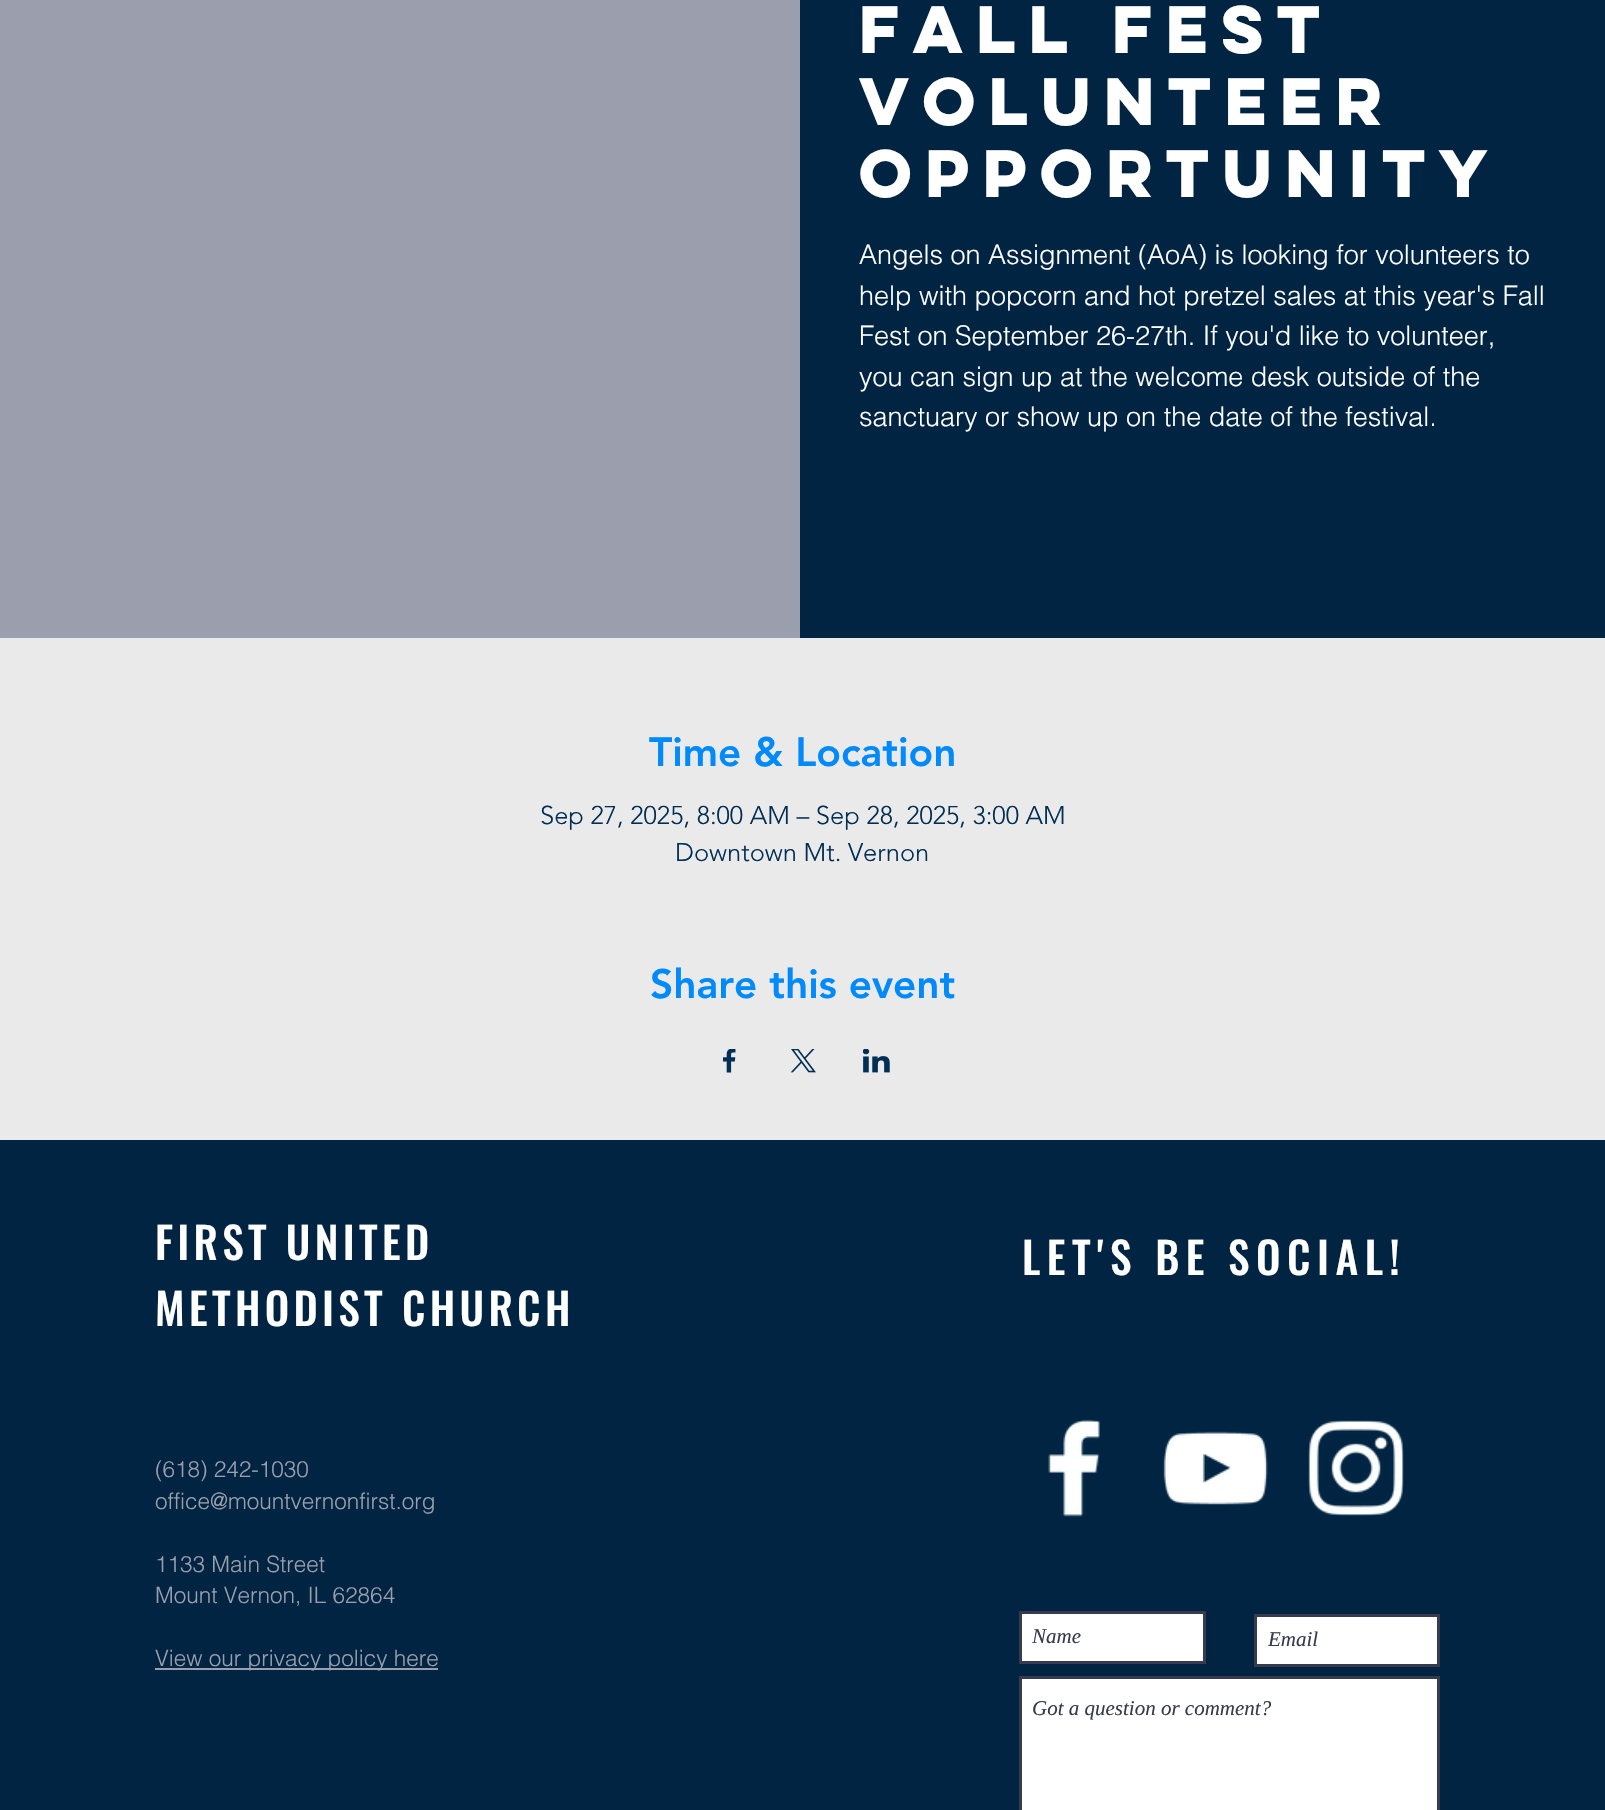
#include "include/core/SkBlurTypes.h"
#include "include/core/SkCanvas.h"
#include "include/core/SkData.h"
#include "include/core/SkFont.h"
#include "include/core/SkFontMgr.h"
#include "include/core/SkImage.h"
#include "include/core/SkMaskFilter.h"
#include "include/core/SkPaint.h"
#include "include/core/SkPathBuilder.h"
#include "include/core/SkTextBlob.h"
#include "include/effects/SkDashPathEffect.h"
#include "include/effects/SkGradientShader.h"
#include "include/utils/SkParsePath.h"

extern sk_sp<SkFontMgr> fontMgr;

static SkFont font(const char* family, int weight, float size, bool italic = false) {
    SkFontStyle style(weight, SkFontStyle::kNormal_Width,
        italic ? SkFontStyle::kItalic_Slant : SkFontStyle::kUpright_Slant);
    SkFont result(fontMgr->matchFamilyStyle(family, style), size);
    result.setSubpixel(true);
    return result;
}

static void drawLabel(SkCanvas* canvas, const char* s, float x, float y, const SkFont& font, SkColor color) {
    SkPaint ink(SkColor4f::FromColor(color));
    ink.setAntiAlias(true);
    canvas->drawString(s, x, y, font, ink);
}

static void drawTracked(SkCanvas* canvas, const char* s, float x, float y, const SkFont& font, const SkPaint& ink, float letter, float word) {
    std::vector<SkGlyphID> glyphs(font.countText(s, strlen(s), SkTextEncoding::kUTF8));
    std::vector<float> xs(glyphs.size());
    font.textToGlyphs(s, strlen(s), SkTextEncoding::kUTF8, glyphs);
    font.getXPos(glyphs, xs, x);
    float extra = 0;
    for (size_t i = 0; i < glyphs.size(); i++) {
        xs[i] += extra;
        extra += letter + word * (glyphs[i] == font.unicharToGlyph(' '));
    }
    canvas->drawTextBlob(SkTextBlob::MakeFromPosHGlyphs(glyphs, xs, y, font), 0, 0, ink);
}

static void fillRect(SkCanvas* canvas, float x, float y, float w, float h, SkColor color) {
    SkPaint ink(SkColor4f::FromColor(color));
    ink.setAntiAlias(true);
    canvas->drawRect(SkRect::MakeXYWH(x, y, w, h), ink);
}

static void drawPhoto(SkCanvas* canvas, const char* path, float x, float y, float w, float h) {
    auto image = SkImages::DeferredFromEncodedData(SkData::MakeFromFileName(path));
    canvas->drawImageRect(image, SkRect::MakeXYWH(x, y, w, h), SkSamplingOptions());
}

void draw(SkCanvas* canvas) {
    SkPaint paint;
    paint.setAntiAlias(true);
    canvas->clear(0xFF002441);
    fillRect(canvas, 0, 0, 800, 638, 0xFF9B9EAC);
    SkFont font1 = font("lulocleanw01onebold", 700, 60);
    drawLabel(canvas, "Fall Fest", 859, 53, font1, 0xFFFFFFFF);
    drawLabel(canvas, "Volunteer", 859, 125, font1, 0xFFFFFFFF);
    drawLabel(canvas, "Opportunity", 859, 197, font1, 0xFFFFFFFF);
    SkFont font2 = font("helvetica", 300, 27);
    drawLabel(canvas, "Angels on Assignment (AoA) is looking for volunteers to", 859, 264, font2, 0xFFFFFFFF);
    drawLabel(canvas, "help with popcorn and hot pretzel sales at this year's Fall", 859, 305, font2, 0xFFFFFFFF);
    drawLabel(canvas, "Fest on September 26-27th. If you'd like to volunteer,", 859, 345, font2, 0xFFFFFFFF);
    drawLabel(canvas, "you can sign up at the welcome desk outside of the", 859, 386, font2, 0xFFFFFFFF);
    drawLabel(canvas, "sanctuary or show up on the date of the festival.", 859, 426, font2, 0xFFFFFFFF);
    fillRect(canvas, 0, 638, 1605, 502, 0xFFEAEAEA);
    SkFont font3 = font("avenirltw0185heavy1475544", 900, 40.5f);
    drawLabel(canvas, "Time & Location", 649, 766, font3, 0xFF008AFC);
    SkFont font4 = font("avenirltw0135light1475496", 300, 25.5f);
    drawLabel(canvas, "Sep 27, 2025, 8:00 AM – Sep 28, 2025, 3:00 AM", 540, 824, font4, 0xFF002E54);
    drawLabel(canvas, "Downtown Mt. Vernon", 675, 861, font4, 0xFF002E54);
    drawLabel(canvas, "Share this event", 650, 998, font3, 0xFF008AFC);
    drawPhoto(canvas, "assets/img1.png", 723, 1049, 13, 24);
    drawPhoto(canvas, "assets/img2.png", 790, 1049, 26, 24);
    drawPhoto(canvas, "assets/img3.png", 863, 1049, 27, 24);
    SkFont font5 = font("Oswald", 500, 43.5f);
    paint.setColor(0xFFFFFFFF);
    drawTracked(canvas, "FIRST UNITED", 155, 1260, font5, paint, 4.3f, 0);
    drawTracked(canvas, "METHODIST CHURCH", 155, 1326, font5, paint, 4.3f, 0);
    drawTracked(canvas, "LET'S BE SOCIAL!", 1022, 1275, font5, paint, 6.5f, 0);
    SkFont font6 = font("helvetica", 300, 22.5f);
    drawLabel(canvas, "(618) 242-1030", 155, 1477, font6, 0xFF9B9EAC);
    drawLabel(canvas, "office@mountvernonfirst.org", 155, 1509, font6, 0xFF9B9EAC);
    drawLabel(canvas, "1133 Main Street", 155, 1572, font6, 0xFF9B9EAC);
    drawLabel(canvas, "Mount Vernon, IL 62864", 155, 1603, font6, 0xFF9B9EAC);
    fillRect(canvas, 155, 1668, 283, 2, 0xFF9B9EAC);
    drawLabel(canvas, "View our privacy policy here", 155, 1666, font6, 0xFF9B9EAC);
    drawPhoto(canvas, "assets/img4.png", 1048, 1419, 52, 98);
    drawPhoto(canvas, "assets/img5.png", 1163, 1431, 105, 74);
    drawPhoto(canvas, "assets/img6.png", 1308, 1420, 96, 96);
    canvas->drawRect(SkRect::MakeXYWH(1020.5f, 1612.5f, 184, 50), paint);
    paint.setStroke(true);
    paint.setStrokeWidth(3);
    paint.setColor(0xFF373B4D);
    canvas->drawRect(SkRect::MakeXYWH(1020.5f, 1612.5f, 184, 50), paint);
    SkFont font7 = font("Liberation Serif", 400, 21, true);
    drawLabel(canvas, "Name", 1032, 1643, font7, 0xFF373B4D);
    paint.setStroke(false);
    paint.setColor(0xFFFFFFFF);
    canvas->drawRect(SkRect::MakeXYWH(1255.5f, 1615.5f, 183, 50), paint);
    paint.setStroke(true);
    paint.setColor(0xFF373B4D);
    canvas->drawRect(SkRect::MakeXYWH(1255.5f, 1615.5f, 183, 50), paint);
    drawLabel(canvas, "Email", 1268, 1646, font7, 0xFF373B4D);
    paint.setStroke(false);
    paint.setColor(0xFFFFFFFF);
    canvas->drawRect(SkRect::MakeXYWH(1020.5f, 1677.5f, 418, 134), paint);
    paint.setStroke(true);
    paint.setColor(0xFF373B4D);
    canvas->drawRect(SkRect::MakeXYWH(1020.5f, 1677.5f, 418, 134), paint);
    drawLabel(canvas, "Got a question or comment?", 1032, 1715, font7, 0xFF373B4D);
}
